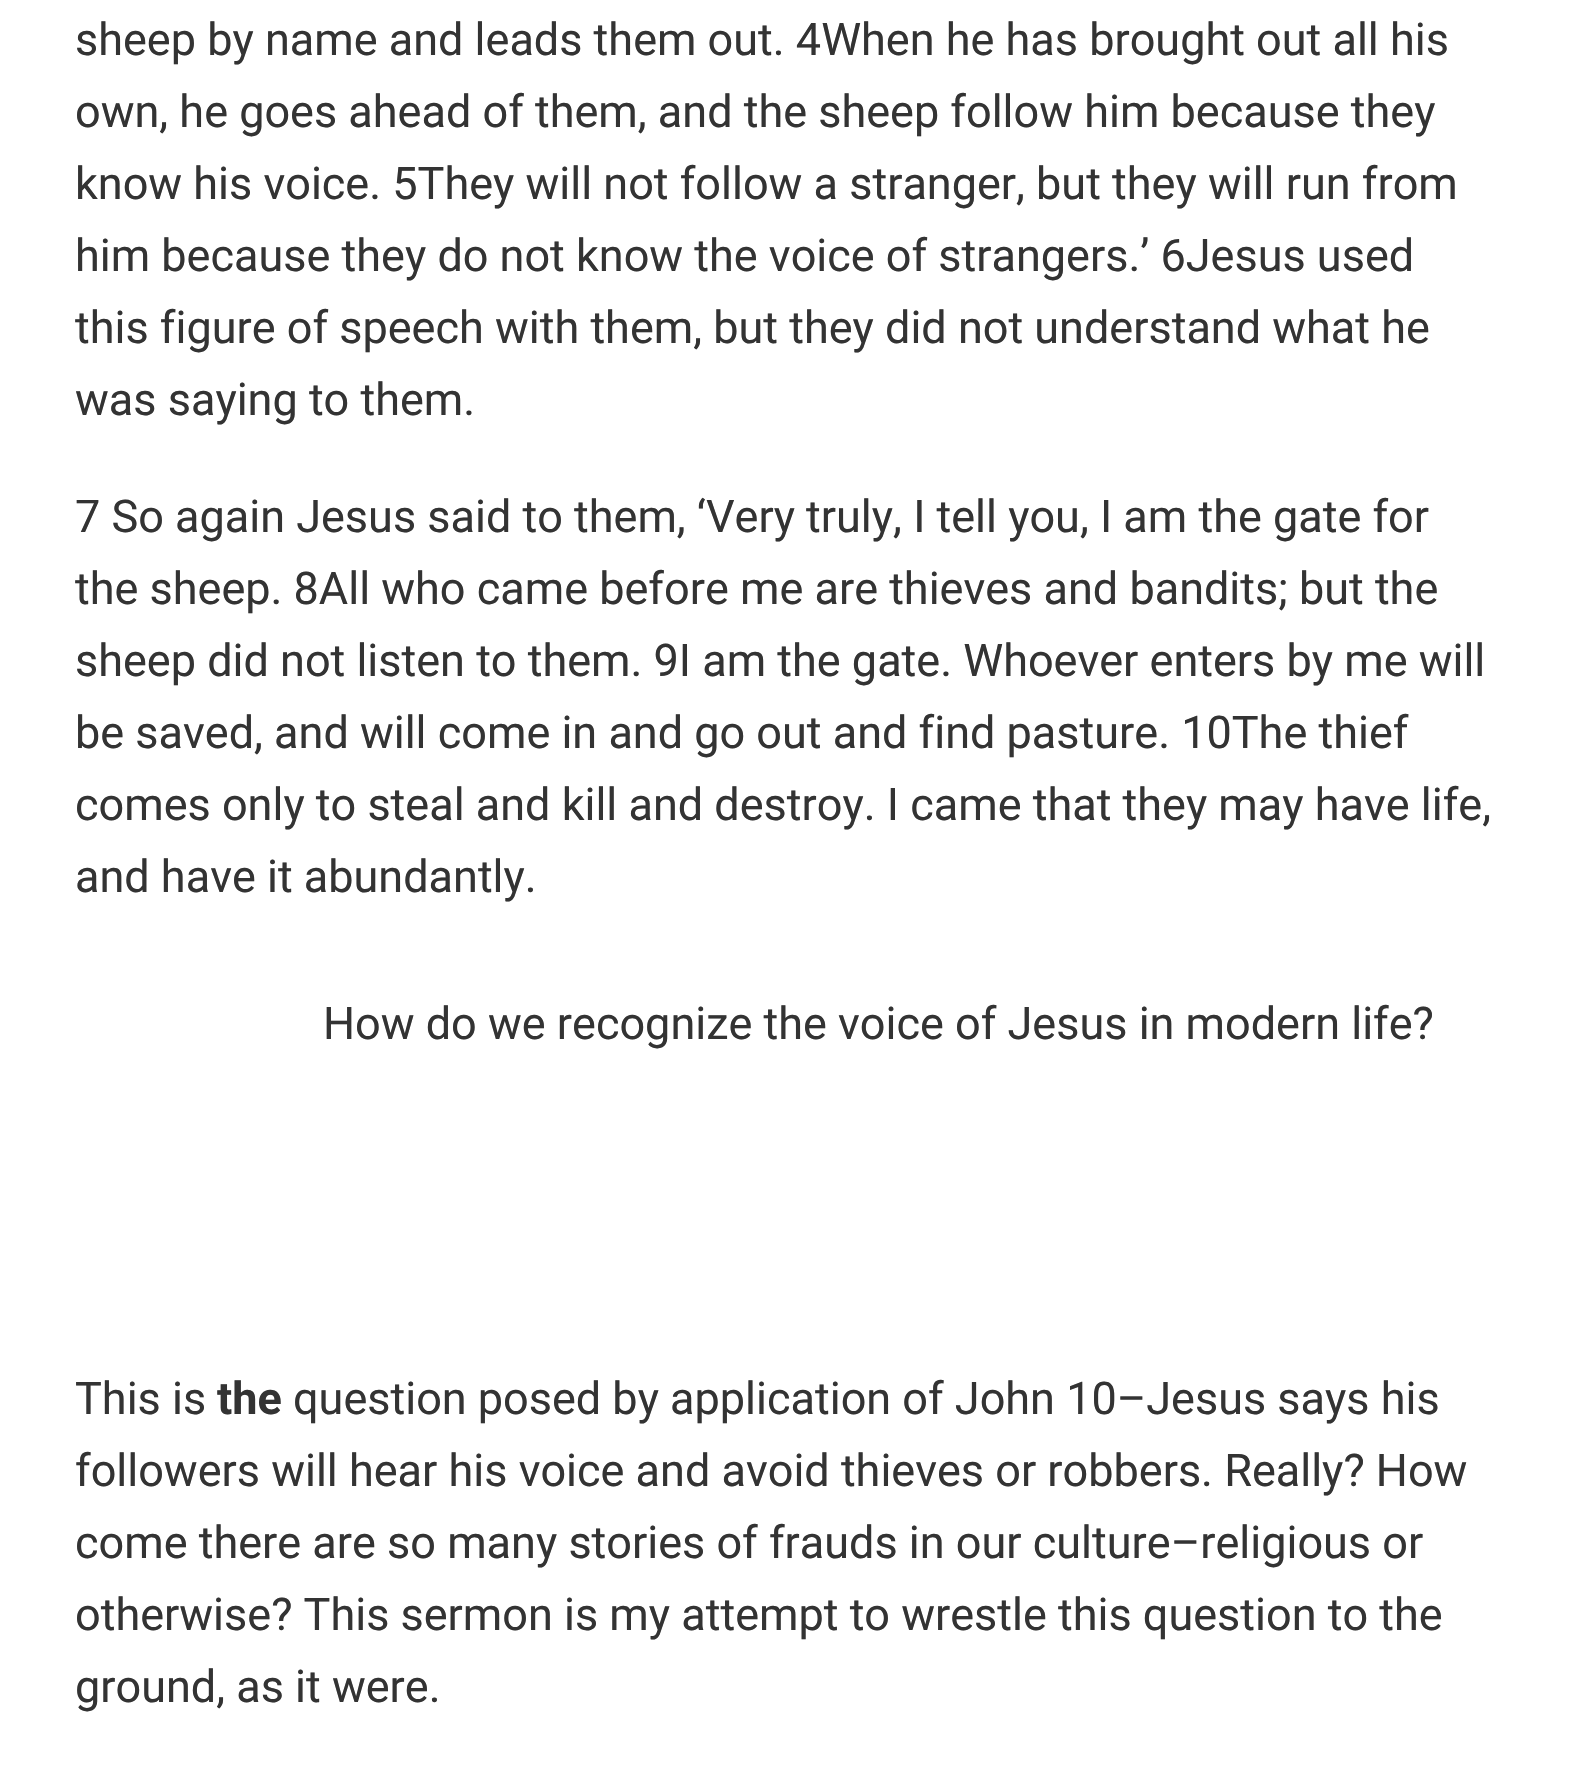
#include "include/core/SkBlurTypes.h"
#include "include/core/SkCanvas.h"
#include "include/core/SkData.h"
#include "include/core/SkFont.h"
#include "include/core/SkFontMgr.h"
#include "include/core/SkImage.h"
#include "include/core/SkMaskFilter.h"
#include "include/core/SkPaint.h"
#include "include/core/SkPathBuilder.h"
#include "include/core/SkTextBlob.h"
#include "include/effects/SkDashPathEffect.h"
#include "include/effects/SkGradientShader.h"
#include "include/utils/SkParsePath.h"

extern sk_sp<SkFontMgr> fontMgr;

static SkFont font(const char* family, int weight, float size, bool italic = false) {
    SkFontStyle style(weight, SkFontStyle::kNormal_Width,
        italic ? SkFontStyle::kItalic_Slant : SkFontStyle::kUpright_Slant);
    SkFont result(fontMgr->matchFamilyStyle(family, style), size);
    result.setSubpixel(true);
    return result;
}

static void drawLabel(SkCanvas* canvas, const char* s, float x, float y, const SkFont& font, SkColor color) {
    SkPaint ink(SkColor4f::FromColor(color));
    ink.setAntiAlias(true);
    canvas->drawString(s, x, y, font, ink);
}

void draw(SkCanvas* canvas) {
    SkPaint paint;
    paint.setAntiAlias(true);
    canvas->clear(0xFFFFFFFF);
    SkFont font1 = font("Roboto", 400, 45);
    drawLabel(canvas, "sheep by name and leads them out. 4When he has brought out all his", 75, 55, font1, 0xFF333333);
    drawLabel(canvas, "own, he goes ahead of them, and the sheep follow him because they", 75, 127, font1, 0xFF333333);
    drawLabel(canvas, "know his voice. 5They will not follow a stranger, but they will run from", 75, 199, font1, 0xFF333333);
    drawLabel(canvas, "him because they do not know the voice of strangers.’ 6Jesus used", 75, 271, font1, 0xFF333333);
    drawLabel(canvas, "this figure of speech with them, but they did not understand what he", 75, 343, font1, 0xFF333333);
    drawLabel(canvas, "was saying to them.", 75, 415, font1, 0xFF333333);
    drawLabel(canvas, "7 So again Jesus said to them, ‘Very truly, I tell you, I am the gate for", 75, 532, font1, 0xFF333333);
    drawLabel(canvas, "the sheep. 8All who came before me are thieves and bandits; but the", 75, 604, font1, 0xFF333333);
    drawLabel(canvas, "sheep did not listen to them. 9I am the gate. Whoever enters by me will", 75, 676, font1, 0xFF333333);
    drawLabel(canvas, "be saved, and will come in and go out and find pasture. 10The thief", 75, 748, font1, 0xFF333333);
    drawLabel(canvas, "comes only to steal and kill and destroy. I came that they may have life,", 75, 820, font1, 0xFF333333);
    drawLabel(canvas, "and have it abundantly.", 75, 892, font1, 0xFF333333);
    drawLabel(canvas, "How do we recognize the voice of Jesus in modern life?", 323, 1039, font1, 0xFF333333);
    drawLabel(canvas, "This is", 75, 1414, font1, 0xFF333333);
    SkFont font2 = font("Roboto", 700, 45);
    drawLabel(canvas, "the", 217, 1414, font2, 0xFF333333);
    drawLabel(canvas, "question posed by application of John 10–Jesus says his", 293, 1414, font1, 0xFF333333);
    drawLabel(canvas, "followers will hear his voice and avoid thieves or robbers. Really? How", 75, 1486, font1, 0xFF333333);
    drawLabel(canvas, "come there are so many stories of frauds in our culture–religious or", 75, 1558, font1, 0xFF333333);
    drawLabel(canvas, "otherwise? This sermon is my attempt to wrestle this question to the", 75, 1630, font1, 0xFF333333);
    drawLabel(canvas, "ground, as it were.", 75, 1702, font1, 0xFF333333);
}
